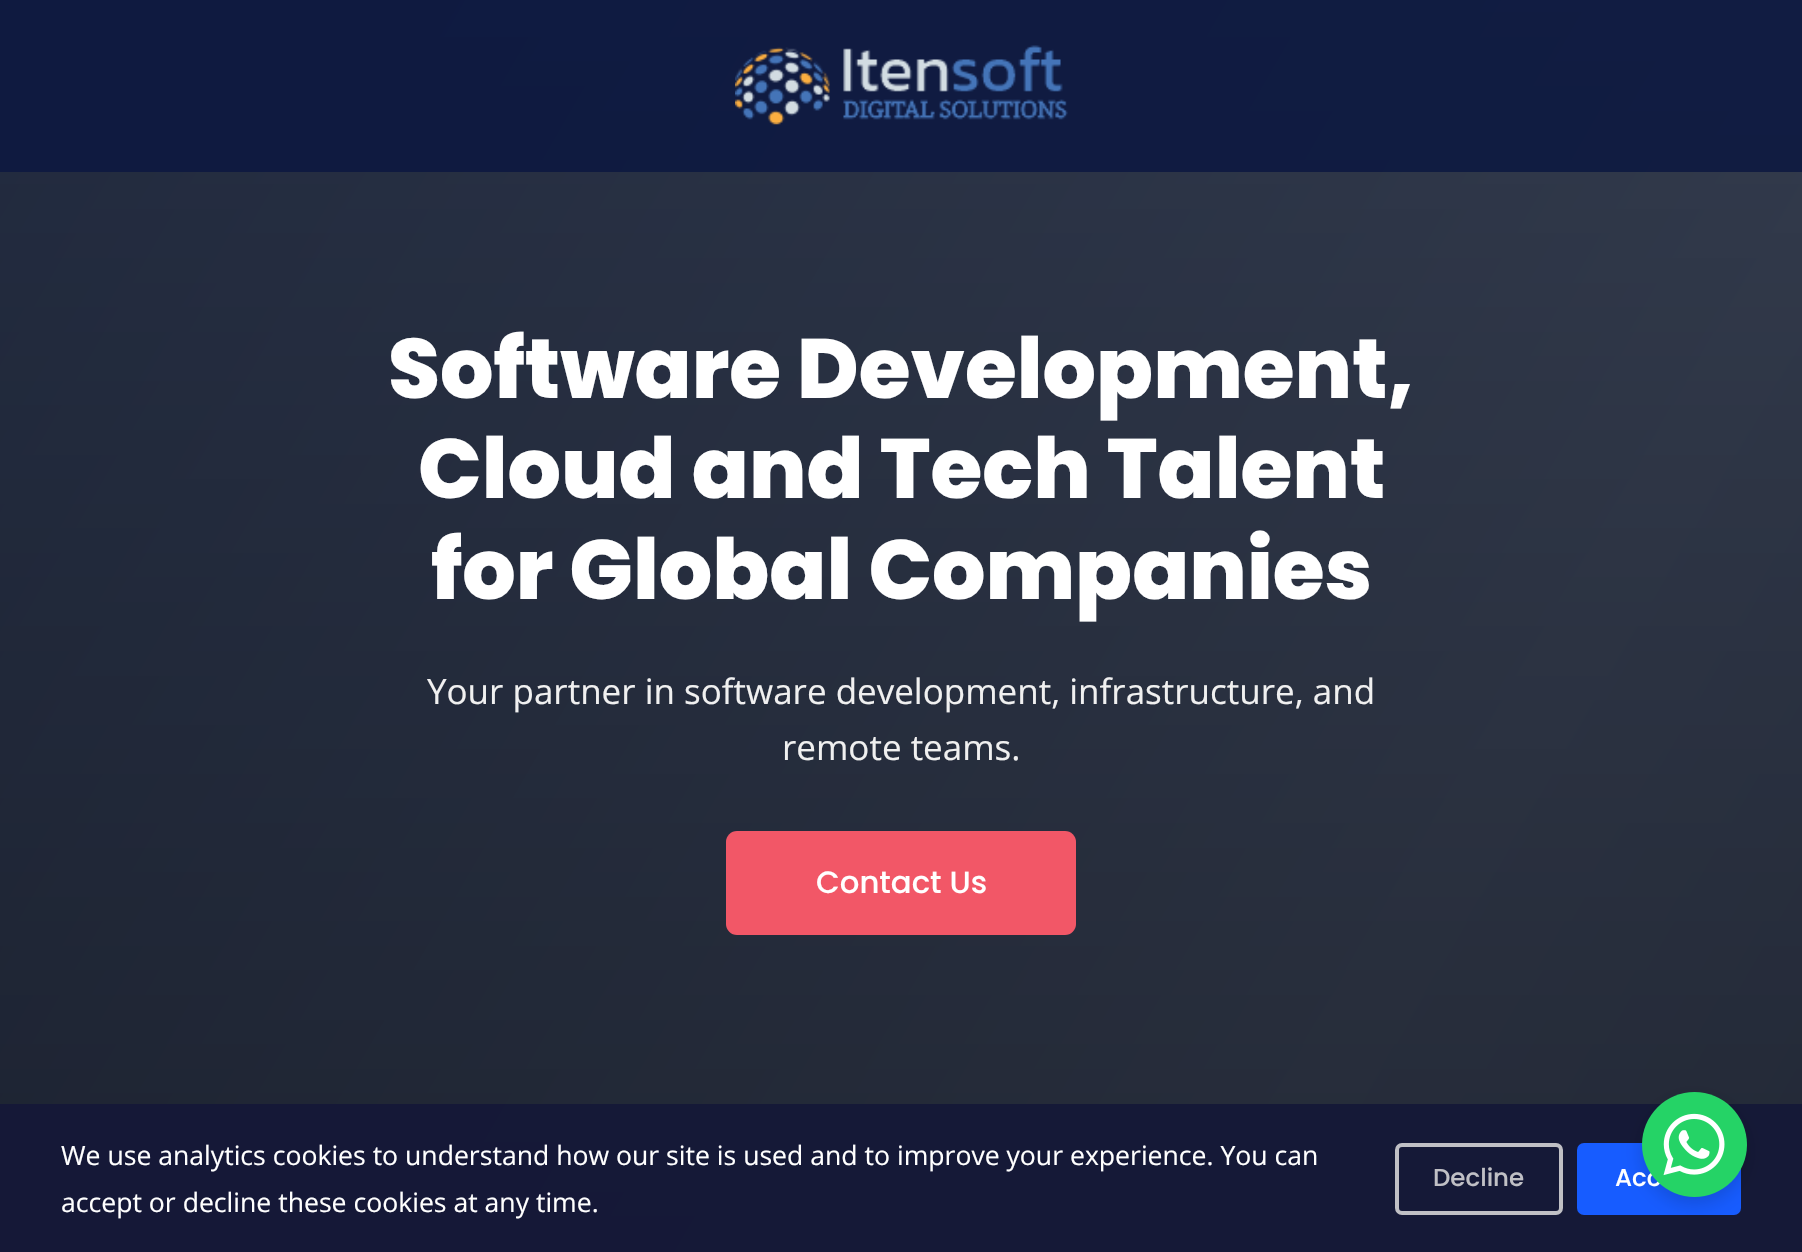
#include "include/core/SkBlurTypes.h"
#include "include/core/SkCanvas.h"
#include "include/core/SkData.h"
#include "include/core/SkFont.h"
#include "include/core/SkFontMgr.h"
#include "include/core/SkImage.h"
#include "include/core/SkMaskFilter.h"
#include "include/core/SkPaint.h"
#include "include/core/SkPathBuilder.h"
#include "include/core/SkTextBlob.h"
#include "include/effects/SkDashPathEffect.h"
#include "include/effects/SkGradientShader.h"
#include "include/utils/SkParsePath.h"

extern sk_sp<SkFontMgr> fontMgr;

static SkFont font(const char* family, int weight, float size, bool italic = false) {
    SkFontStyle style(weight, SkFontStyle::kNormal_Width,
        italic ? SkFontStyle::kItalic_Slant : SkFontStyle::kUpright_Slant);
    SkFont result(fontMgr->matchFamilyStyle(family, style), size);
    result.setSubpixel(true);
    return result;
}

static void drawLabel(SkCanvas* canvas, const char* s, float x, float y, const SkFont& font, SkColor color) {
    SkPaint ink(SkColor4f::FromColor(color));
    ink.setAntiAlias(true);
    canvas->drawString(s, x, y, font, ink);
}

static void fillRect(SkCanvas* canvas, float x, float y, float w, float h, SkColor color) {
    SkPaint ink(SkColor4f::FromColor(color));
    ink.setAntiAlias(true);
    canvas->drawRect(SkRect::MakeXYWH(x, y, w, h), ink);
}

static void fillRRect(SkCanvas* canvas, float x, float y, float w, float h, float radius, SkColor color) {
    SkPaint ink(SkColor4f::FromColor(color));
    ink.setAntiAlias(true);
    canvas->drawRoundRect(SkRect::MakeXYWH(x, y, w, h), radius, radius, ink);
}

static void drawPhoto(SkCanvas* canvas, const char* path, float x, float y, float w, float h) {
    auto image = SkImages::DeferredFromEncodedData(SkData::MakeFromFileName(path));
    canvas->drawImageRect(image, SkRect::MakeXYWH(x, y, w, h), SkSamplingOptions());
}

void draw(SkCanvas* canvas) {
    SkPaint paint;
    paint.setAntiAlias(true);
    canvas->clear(0xFFFFFFFF);
    {
        const SkColor colors[] = {0xFF313E5C, 0xFF49556F, 0xFF313E5C};
        const float stops[] = {0, 0.45f, 1};
        const SkPoint ends[] = {{179, -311}, {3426, 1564}};
        paint.setShader(SkGradientShader::MakeLinear(ends, colors, stops, 3, SkTileMode::kClamp));
        paint.setAlpha(255);
    }
    canvas->drawRect(SkRect::MakeXYWH(0, 0, 1802, 1252), paint);
    {
        const SkColor colors[] = {0x4D000000, 0x80000000};
        const float stops[] = {0, 1};
        const SkPoint ends[] = {{901, 0}, {901, 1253}};
        paint.setShader(SkGradientShader::MakeLinear(ends, colors, stops, 2, SkTileMode::kClamp));
        paint.setAlpha(255);
    }
    canvas->drawRect(SkRect::MakeXYWH(0, 0, 1802, 1252), paint);
    fillRect(canvas, 0, 0, 1802, 172, 0xD90B163F);
    drawPhoto(canvas, "assets/img1.png", 735, 45, 333, 80);
    SkFont font1 = font("Poppins", 800, 84);
    drawLabel(canvas, "Software Development,", 388, 398, font1, 0xFFFFFFFF);
    drawLabel(canvas, "Cloud and Tech Talent", 418, 498, font1, 0xFFFFFFFF);
    drawLabel(canvas, "for Global Companies", 431, 599, font1, 0xFFFFFFFF);
    SkFont font2 = font("Open Sans", 400, 35);
    drawLabel(canvas, "Your partner in software development, infrastructure, and", 427, 704, font2, 0xFFF0F0F0);
    drawLabel(canvas, "remote teams.", 782, 760, font2, 0xFFF0F0F0);
    fillRRect(canvas, 726, 831, 350, 104, 11, 0xFFF25767);
    SkFont font3 = font("Poppins", 500, 30.75f);
    drawLabel(canvas, "Contact Us", 816, 893, font3, 0xFFFFFFFF);
    fillRect(canvas, 0, 1104, 1802, 148, 0xF2141737);
    fillRRect(canvas, 1577, 1143, 164, 72, 7, 0xFF175CFF);
    paint.setShader(nullptr);
    paint.setColor(0x26000000);
    paint.setMaskFilter(SkMaskFilter::MakeBlur(kNormal_SkBlurStyle, 9));
    canvas->drawRoundRect(SkRect::MakeXYWH(1642, 1099, 105, 105), 52.5f, 52.5f, paint);
    paint.setMaskFilter(nullptr);
    SkFont font4 = font("Poppins", 500, 24.5f);
    drawLabel(canvas, "Acc", 1615, 1186, font4, 0xFFFFFFFF);
    paint.setColor(0xFF25D366);
    canvas->drawCircle(1694.5f, 1144.5f, 52.5f, paint);
    drawPhoto(canvas, "assets/img2.png", 1663, 1113, 62, 63);
    SkFont font5 = font("Open Sans", 400, 26.6f);
    drawLabel(canvas, "We use analytics cookies to understand how our site is used and to improve your experience. You can", 61, 1165, font5, 0xFFFFFFFF);
    drawLabel(canvas, "accept or decline these cookies at any time.", 61, 1212, font5, 0xFFFFFFFF);
    paint.setStroke(true);
    paint.setStrokeWidth(4);
    paint.setColor(0xFFC0C0C5);
    canvas->drawRoundRect(SkRect::MakeXYWH(1397, 1145, 164, 68), 5, 5, paint);
    drawLabel(canvas, "Decline", 1433, 1186, font4, 0xFFC0C0C5);
}
